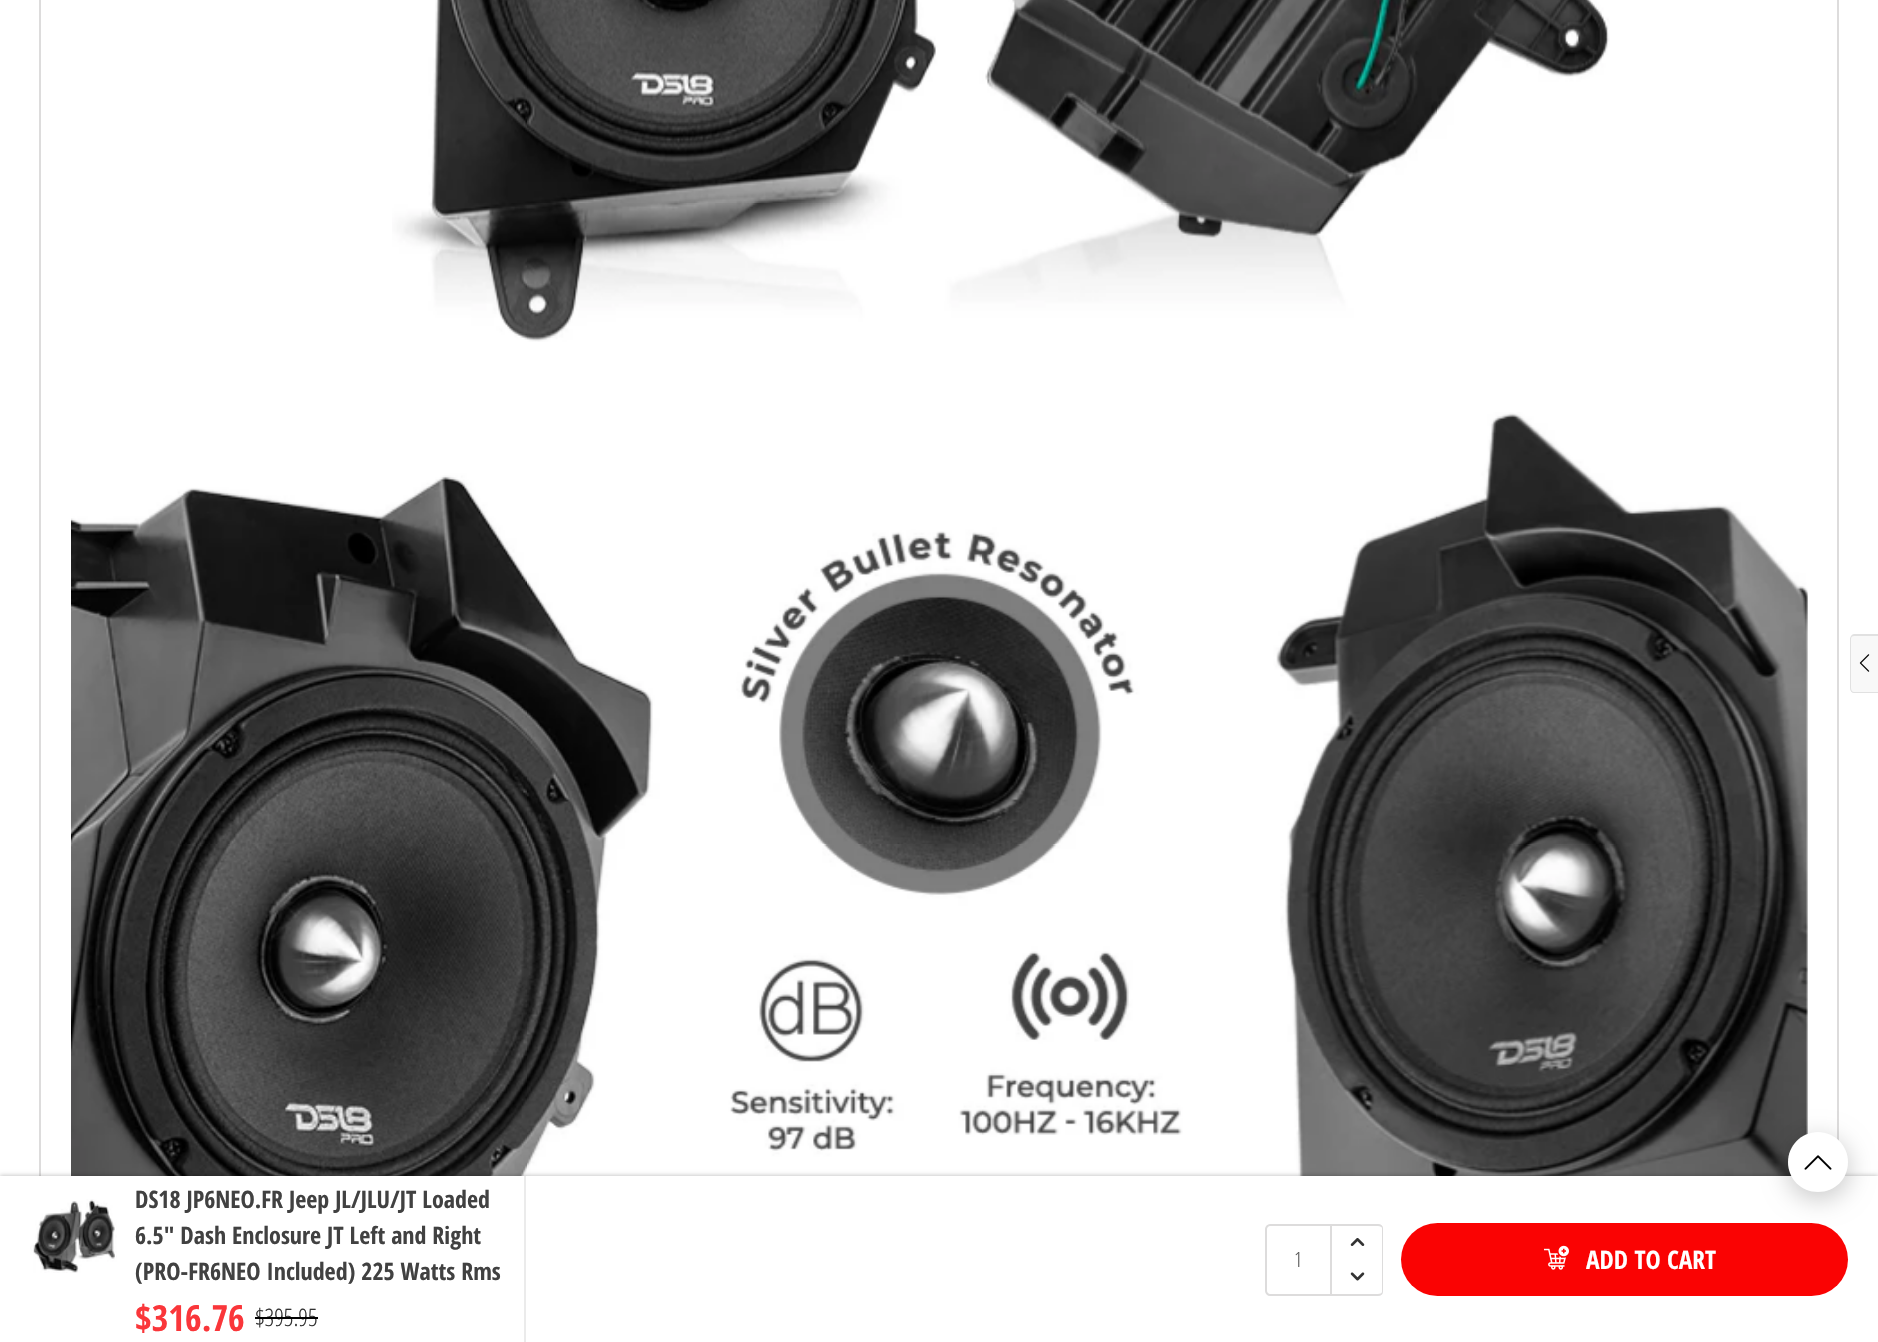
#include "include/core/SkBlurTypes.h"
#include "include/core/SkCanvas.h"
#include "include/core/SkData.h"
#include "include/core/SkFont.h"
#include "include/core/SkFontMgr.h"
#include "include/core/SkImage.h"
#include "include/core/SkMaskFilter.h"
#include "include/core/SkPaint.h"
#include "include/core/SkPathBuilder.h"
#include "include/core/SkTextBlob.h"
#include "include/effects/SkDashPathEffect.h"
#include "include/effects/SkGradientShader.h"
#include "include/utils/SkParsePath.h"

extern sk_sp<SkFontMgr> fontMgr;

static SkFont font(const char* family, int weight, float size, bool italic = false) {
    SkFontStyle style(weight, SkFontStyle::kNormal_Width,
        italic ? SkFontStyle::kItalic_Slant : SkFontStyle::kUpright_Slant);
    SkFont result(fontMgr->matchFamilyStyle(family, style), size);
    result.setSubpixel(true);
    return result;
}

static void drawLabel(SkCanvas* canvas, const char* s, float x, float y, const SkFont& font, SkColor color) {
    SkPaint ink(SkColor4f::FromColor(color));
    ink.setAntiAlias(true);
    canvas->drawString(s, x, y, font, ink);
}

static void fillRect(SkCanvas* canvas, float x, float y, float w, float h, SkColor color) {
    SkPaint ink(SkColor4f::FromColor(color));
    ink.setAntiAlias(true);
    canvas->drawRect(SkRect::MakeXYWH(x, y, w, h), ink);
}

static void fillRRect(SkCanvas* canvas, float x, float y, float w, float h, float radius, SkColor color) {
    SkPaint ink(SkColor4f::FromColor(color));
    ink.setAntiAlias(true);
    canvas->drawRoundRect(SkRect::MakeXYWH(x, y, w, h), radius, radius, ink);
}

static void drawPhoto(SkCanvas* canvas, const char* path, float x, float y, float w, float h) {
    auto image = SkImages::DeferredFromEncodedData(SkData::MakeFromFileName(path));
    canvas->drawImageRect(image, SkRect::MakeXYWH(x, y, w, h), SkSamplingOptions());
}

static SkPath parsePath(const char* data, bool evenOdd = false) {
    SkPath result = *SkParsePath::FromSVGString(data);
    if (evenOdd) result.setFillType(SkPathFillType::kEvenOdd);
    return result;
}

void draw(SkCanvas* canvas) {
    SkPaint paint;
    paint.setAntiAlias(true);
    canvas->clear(0xFFFFFFFF);
    paint.setStroke(true);
    paint.setStrokeWidth(2);
    paint.setColor(0xFFDDDCDC);
    canvas->drawRect(SkRect::MakeXYWH(40, -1, 1798, 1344), paint);
    drawPhoto(canvas, "assets/img4.png", 71, 412, 1737, 764);
    paint.setStroke(false);
    paint.setColor(0x33000000);
    paint.setMaskFilter(SkMaskFilter::MakeBlur(kNormal_SkBlurStyle, 2));
    canvas->drawRect(SkRect::MakeXYWH(0, 1175, 1878, 166), paint);
    paint.setMaskFilter(nullptr);
    fillRect(canvas, 0, 1176, 1878, 166, 0xFFFFFFFF);
    fillRRect(canvas, 1401, 1223, 447, 73, 36.5f, 0xFFFA0303);
    paint.setMaskFilter(SkMaskFilter::MakeBlur(kNormal_SkBlurStyle, 12));
    canvas->drawRoundRect(SkRect::MakeXYWH(1787, 1137, 63, 63), 31.5f, 31.5f, paint);
    paint.setMaskFilter(nullptr);
    paint.setColor(0xFFFFFFFF);
    canvas->drawPath(parsePath("M1818 1192C1801 1192 1788 1179 1788 1162C1788 1146 1801 1132 1818 1132C1835 1132 1848 1146 1848 1162C1848 1179 1835 1192 1818 1192Z"), paint);
    drawPhoto(canvas, "assets/img1.png", 1804, 1155, 28, 15);
    paint.setColor(0xFFF8F8F8);
    canvas->drawPath(parsePath("M1855 635H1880V693H1855C1852 693 1850 691 1850 688V640C1850 637 1852 635 1855 635Z"), paint);
    paint.setColor(0xFFE1E1E1);
    canvas->drawPath(parsePath("M1854 634H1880V693H1854C1852 693 1850 691 1850 688V639C1850 637 1852 634 1854 634ZM1854 636H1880V692H1854C1852 692 1851 690 1851 688V639C1851 637 1852 636 1854 636Z", true), paint);
    drawPhoto(canvas, "assets/img2.png", 1859, 654, 11, 18);
    drawPhoto(canvas, "assets/img3.png", 392, 0, 1218, 342);
    fillRect(canvas, 524, 1176, 2, 166, 0xFFEBEBEB);
    drawPhoto(canvas, "assets/img5.png", 30, 1199, 87, 74);
    SkFont font1 = font("Open Sans Condensed", 700, 24);
    drawLabel(canvas, "DS18 JP6NEO.FR Jeep JL/JLU/JT Loaded", 135, 1208, font1, 0xFF414141);
    drawLabel(canvas, "6.5\" Dash Enclosure JT Left and Right", 135, 1244, font1, 0xFF414141);
    drawLabel(canvas, "(PRO-FR6NEO Included) 225 Watts Rms", 135, 1280, font1, 0xFF414141);
    SkFont font2 = font("Open Sans Condensed", 700, 36);
    drawLabel(canvas, "$316.76", 135, 1331, font2, 0xFFFA363A);
    SkFont font3 = font("Open Sans Condensed", 300, 24);
    drawLabel(canvas, "$395.95", 255, 1326, font3, 0xFF333333);
    fillRect(canvas, 255, 1317, 63, 2, 0xCC000000);
    fillRect(canvas, 255, 1317, 63, 2, 0xCC000000);
    fillRect(canvas, 255, 1317, 63, 2, 0xCC000000);
    paint.setStroke(true);
    paint.setColor(0xFFDDDCDC);
    canvas->drawPath(parsePath("M1270 1225H1331V1295H1270C1268 1295 1266 1293 1266 1291V1229C1266 1227 1268 1225 1270 1225Z"), paint);
    SkFont font4 = font("Open Sans Condensed", 300, 21);
    drawLabel(canvas, "1", 1294, 1267, font4, 0xFF555555);
    paint.setStroke(false);
    paint.setColor(0xFFFFFFFF);
    canvas->drawPath(parsePath("M1331 1224H1378C1381 1224 1383 1226 1383 1229V1260H1331Z"), paint);
    paint.setColor(0xFFDDDCDC);
    canvas->drawPath(parsePath("M1330 1224H1378C1381 1224 1383 1226 1383 1228V1260H1330ZM1332 1226H1378C1380 1226 1382 1227 1382 1228V1260H1332Z", true), paint);
    drawPhoto(canvas, "assets/img6.png", 1350, 1238, 15, 8);
    paint.setColor(0xFFFFFFFF);
    canvas->drawPath(parsePath("M1331 1260H1383V1291C1383 1294 1381 1296 1378 1296H1331Z"), paint);
    paint.setColor(0xFFDDDCDC);
    canvas->drawPath(parsePath("M1330 1260H1383V1292C1383 1294 1381 1296 1378 1296H1330ZM1332 1260H1382V1292C1382 1293 1380 1294 1378 1294H1332Z", true), paint);
    drawPhoto(canvas, "assets/img7.png", 1350, 1272, 15, 9);
    drawPhoto(canvas, "assets/img8.png", 1544, 1245, 25, 25);
    SkFont font5 = font("Open Sans Condensed", 700, 25.5f);
    drawLabel(canvas, "ADD TO CART", 1586, 1269, font5, 0xFFFFFFFF);
}
